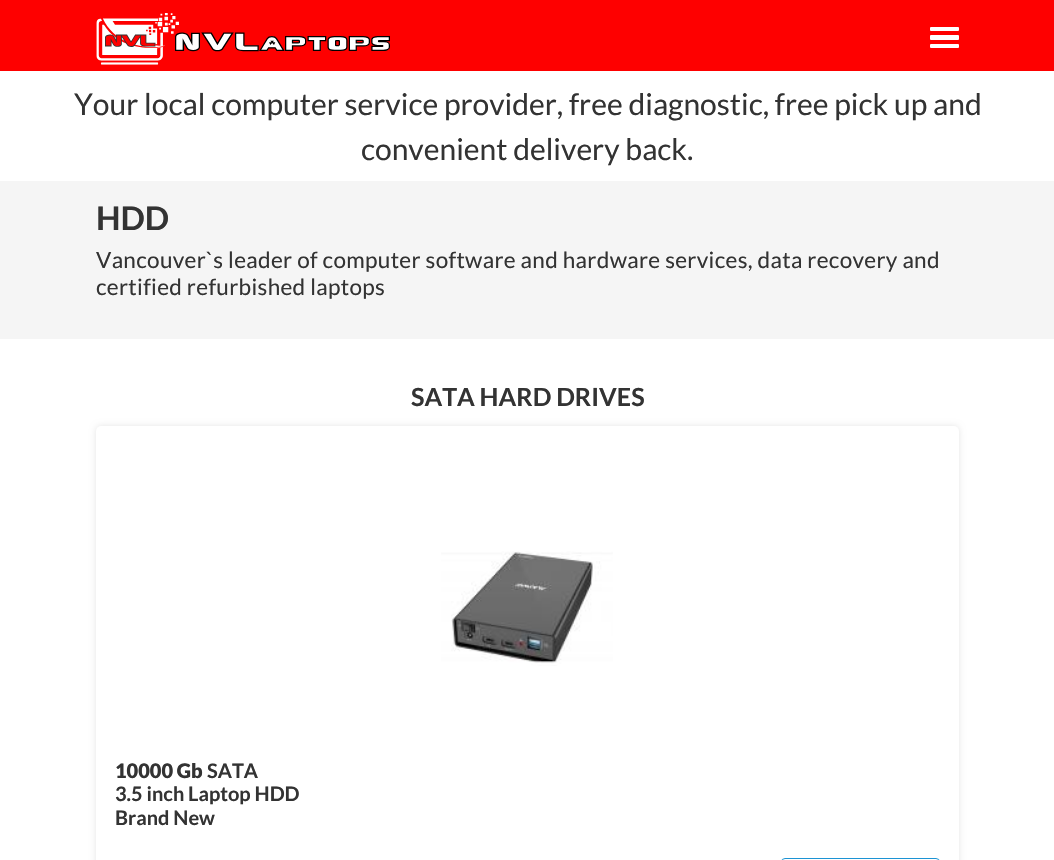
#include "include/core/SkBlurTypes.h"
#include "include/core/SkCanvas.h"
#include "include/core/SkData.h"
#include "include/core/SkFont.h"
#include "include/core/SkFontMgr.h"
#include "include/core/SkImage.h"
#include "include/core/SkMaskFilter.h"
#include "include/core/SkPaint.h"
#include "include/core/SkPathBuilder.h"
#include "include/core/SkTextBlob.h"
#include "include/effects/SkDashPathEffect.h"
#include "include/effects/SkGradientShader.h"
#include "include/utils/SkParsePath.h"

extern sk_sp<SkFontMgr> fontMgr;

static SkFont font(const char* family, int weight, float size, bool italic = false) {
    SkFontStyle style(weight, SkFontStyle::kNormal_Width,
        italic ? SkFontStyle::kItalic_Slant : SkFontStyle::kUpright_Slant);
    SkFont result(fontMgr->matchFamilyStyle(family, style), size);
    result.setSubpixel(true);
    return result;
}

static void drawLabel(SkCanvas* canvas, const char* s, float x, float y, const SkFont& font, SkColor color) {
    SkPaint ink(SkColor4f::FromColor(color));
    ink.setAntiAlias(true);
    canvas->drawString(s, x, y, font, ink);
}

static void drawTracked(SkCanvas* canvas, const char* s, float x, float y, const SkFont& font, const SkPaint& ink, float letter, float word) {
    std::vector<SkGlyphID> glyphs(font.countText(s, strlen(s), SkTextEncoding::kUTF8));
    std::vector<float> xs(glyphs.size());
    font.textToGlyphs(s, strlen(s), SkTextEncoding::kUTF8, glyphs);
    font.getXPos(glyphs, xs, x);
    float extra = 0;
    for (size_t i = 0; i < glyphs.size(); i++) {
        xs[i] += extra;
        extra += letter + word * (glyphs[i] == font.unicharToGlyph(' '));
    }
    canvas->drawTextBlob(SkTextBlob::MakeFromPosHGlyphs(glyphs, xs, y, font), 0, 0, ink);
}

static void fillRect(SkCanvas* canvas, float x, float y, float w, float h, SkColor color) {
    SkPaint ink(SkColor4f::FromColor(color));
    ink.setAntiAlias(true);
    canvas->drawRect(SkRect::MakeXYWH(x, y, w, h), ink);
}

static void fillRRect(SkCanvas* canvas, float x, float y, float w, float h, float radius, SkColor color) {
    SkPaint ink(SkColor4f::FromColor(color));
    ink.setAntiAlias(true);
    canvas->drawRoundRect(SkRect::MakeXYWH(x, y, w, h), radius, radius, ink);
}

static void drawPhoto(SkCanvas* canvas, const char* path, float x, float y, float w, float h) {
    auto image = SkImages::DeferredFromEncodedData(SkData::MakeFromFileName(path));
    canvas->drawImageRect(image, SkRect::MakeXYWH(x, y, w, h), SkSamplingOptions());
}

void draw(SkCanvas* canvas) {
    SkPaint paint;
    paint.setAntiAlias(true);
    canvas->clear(0xFFFFFFFF);
    fillRect(canvas, 0, 0, 1054, 71, 0xFFFE0000);
    drawPhoto(canvas, "assets/img1.png", 96, 13, 294, 52);
    fillRRect(canvas, 930, 27, 29, 4, 1, 0xFFFFFFFF);
    fillRRect(canvas, 930, 35, 29, 5, 1, 0xFFFFFFFF);
    fillRRect(canvas, 930, 44, 29, 4, 1, 0xFFFFFFFF);
    SkFont font1 = font("Lato", 400, 30);
    drawLabel(canvas, "Your local computer service provider, free diagnostic, free pick up and", 74, 115, font1, 0xFF333333);
    drawLabel(canvas, "convenient delivery back.", 361, 160, font1, 0xFF333333);
    fillRect(canvas, 0, 181, 1054, 158, 0xFFF5F5F5);
    SkFont font2 = font("Lato", 700, 32.5f);
    drawLabel(canvas, "HDD", 96, 230, font2, 0xFF333333);
    SkFont font3 = font("Lato", 400, 22.5f);
    paint.setColor(0xFF333333);
    drawTracked(canvas, "Vancouver`s leader of computer software and hardware services, data recovery and", 96, 268, font3, paint, 0.33f, 0);
    drawTracked(canvas, "certified refurbished laptops", 96, 295, font3, paint, 0.33f, 0);
    SkFont font4 = font("Lato", 700, 25);
    drawLabel(canvas, "SATA HARD DRIVES", 411, 406, font4, 0xFF333333);
    paint.setColor(0x1A000000);
    paint.setMaskFilter(SkMaskFilter::MakeBlur(kNormal_SkBlurStyle, 3));
    canvas->drawRoundRect(SkRect::MakeXYWH(96, 426, 863, 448), 5, 5, paint);
    paint.setMaskFilter(nullptr);
    fillRRect(canvas, 96, 426, 863, 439, 5, 0xFFFFFFFF);
    drawPhoto(canvas, "assets/img2.png", 441, 551, 172, 115);
    SkFont font5 = font("Lato", 900, 20);
    drawLabel(canvas, "10000 Gb", 115, 778, font5, 0xFF333333);
    SkFont font6 = font("Lato", 700, 20);
    drawLabel(canvas, "SATA", 207, 778, font6, 0xFF333333);
    drawLabel(canvas, "3.5 inch Laptop HDD", 115, 801, font6, 0xFF333333);
    drawLabel(canvas, "Brand New", 115, 825, font6, 0xFF333333);
    paint.setStroke(true);
    paint.setStrokeWidth(1);
    paint.setColor(0xFF1C93D4);
    canvas->drawRoundRect(SkRect::MakeXYWH(781.5f, 858.5f, 158, 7), 4.5f, 4.5f, paint);
}
